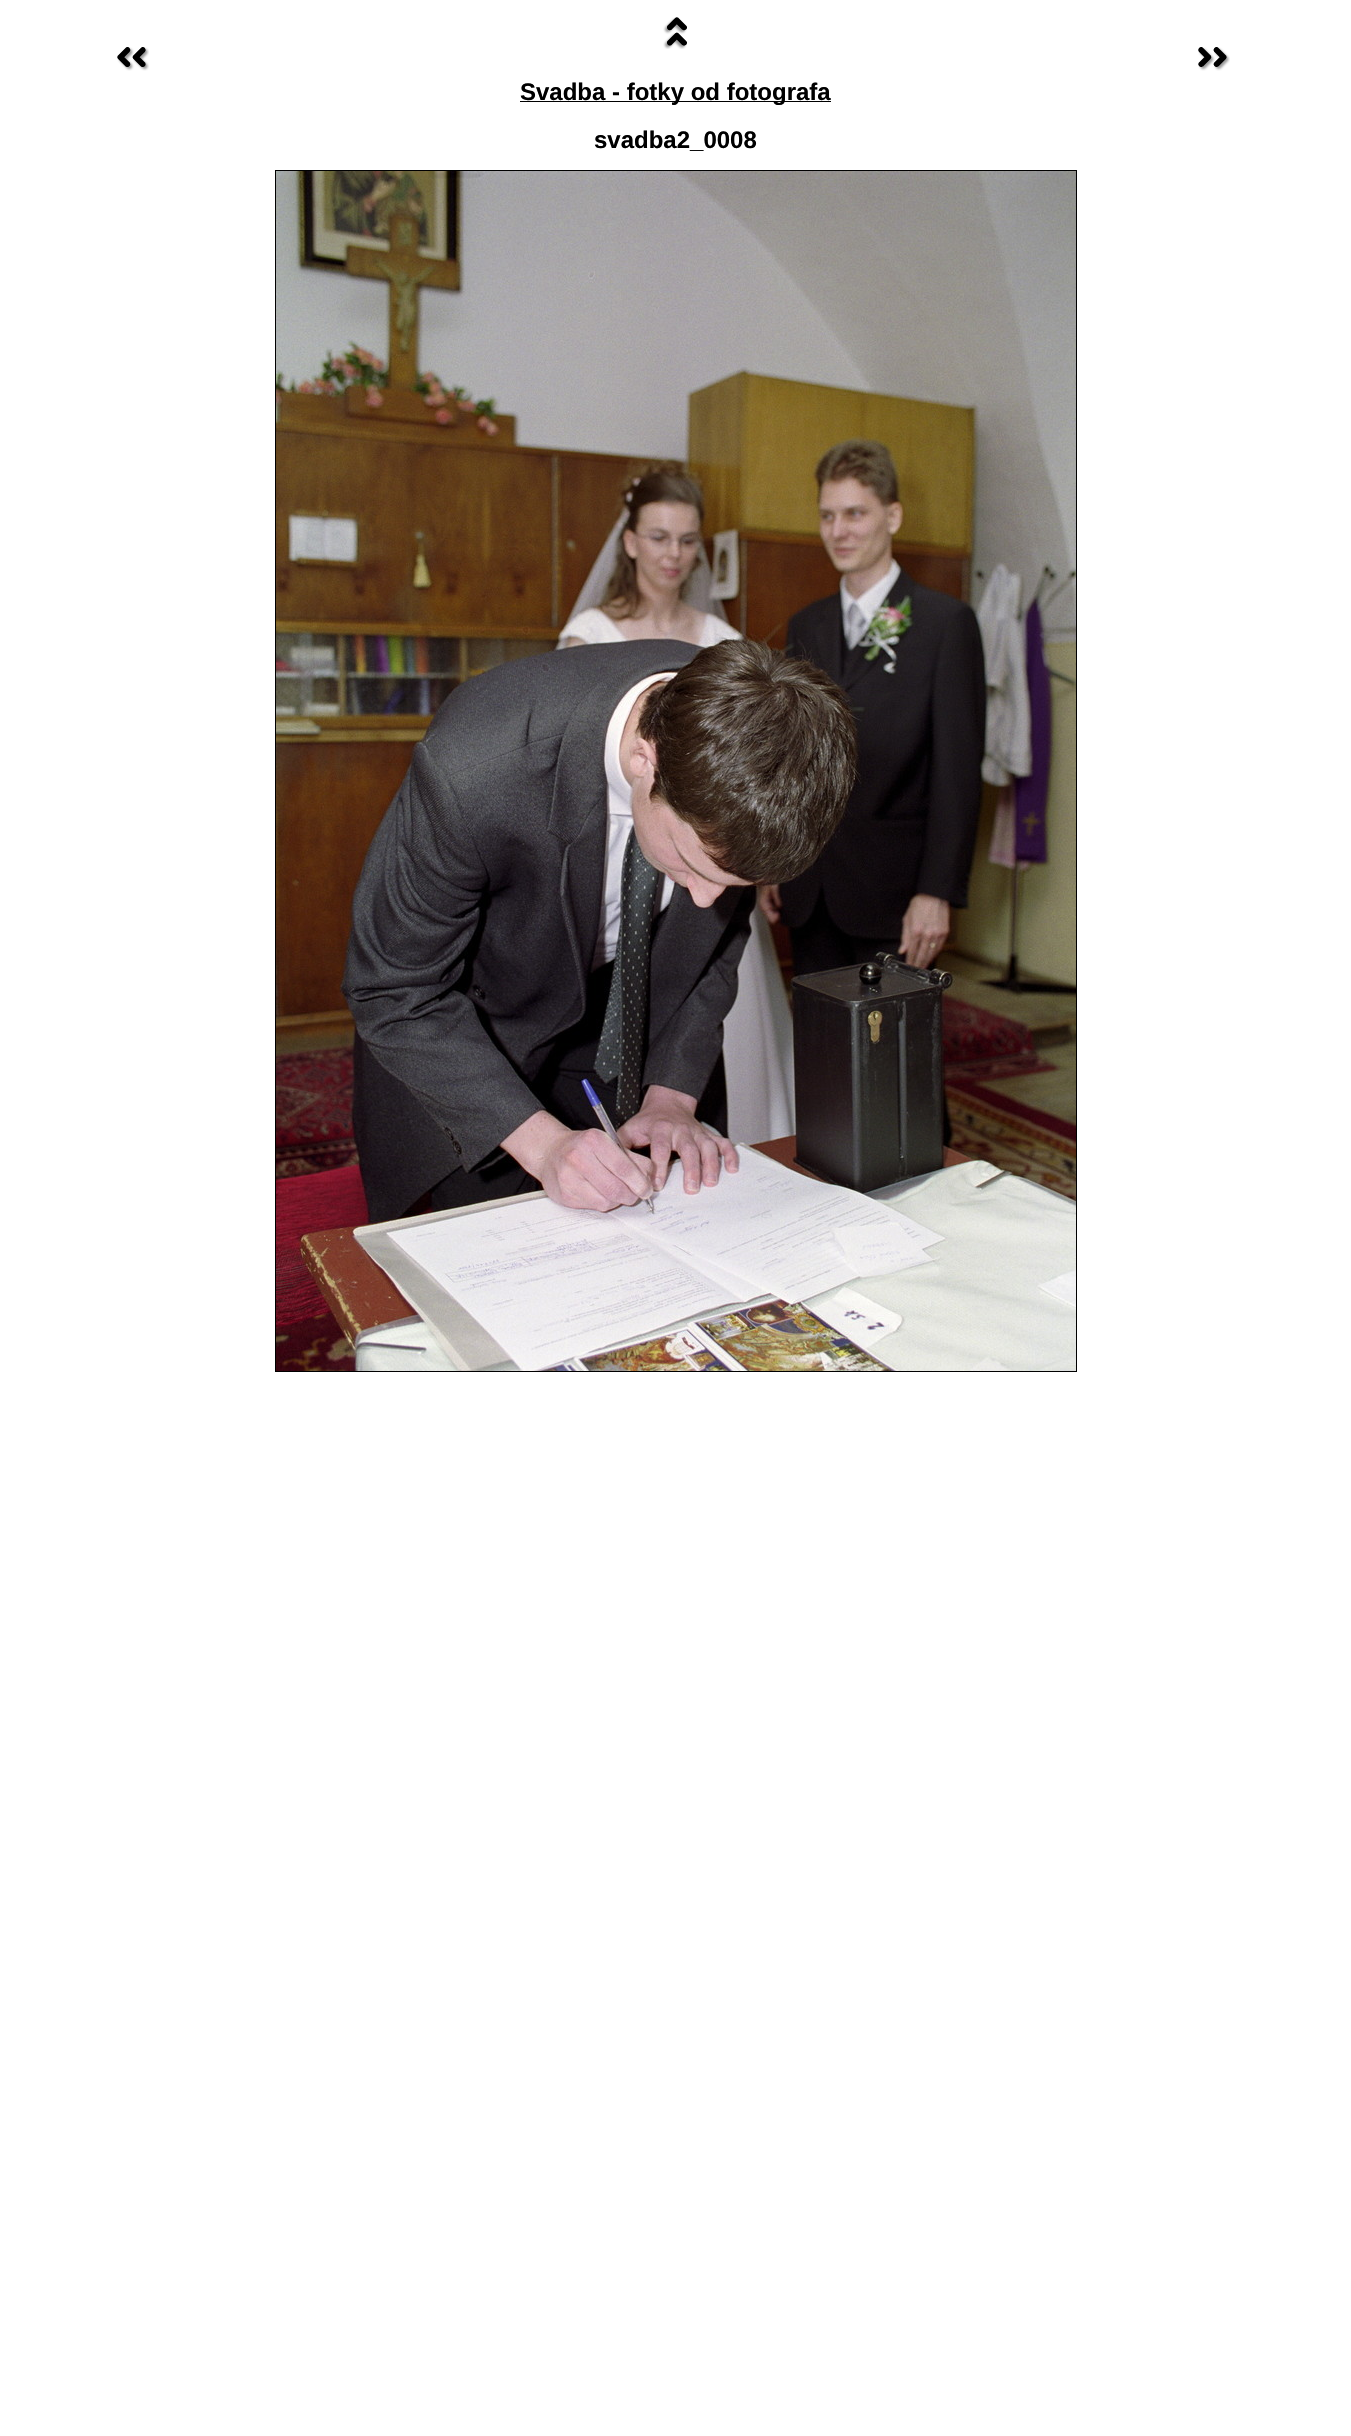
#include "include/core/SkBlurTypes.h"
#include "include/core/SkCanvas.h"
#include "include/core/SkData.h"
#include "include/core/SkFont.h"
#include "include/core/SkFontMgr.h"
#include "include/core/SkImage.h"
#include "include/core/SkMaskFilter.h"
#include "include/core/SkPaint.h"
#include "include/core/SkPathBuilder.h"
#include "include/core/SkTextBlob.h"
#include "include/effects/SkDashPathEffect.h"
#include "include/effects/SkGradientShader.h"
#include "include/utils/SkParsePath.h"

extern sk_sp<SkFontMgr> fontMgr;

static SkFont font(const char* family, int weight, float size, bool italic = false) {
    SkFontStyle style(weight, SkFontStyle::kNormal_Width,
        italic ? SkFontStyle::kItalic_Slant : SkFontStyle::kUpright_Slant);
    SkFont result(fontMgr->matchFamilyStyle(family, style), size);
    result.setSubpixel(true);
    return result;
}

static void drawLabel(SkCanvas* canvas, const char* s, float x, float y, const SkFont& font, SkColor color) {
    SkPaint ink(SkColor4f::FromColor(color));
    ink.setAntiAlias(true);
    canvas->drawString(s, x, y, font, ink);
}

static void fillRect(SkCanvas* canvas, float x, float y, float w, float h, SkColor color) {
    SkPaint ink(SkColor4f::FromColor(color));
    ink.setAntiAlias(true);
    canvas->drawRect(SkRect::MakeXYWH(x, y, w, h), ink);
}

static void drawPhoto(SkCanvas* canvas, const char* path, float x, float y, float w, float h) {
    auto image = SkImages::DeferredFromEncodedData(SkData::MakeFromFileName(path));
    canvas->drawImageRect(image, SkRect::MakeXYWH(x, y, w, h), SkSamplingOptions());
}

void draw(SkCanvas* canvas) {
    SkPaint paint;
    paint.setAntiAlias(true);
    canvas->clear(0xFFFFFFFF);
    drawPhoto(canvas, "assets/img1.png", 117, 47, 32, 24);
    drawPhoto(canvas, "assets/img2.png", 1198, 47, 32, 24);
    drawPhoto(canvas, "assets/img3.png", 663, 17, 24, 32);
    fillRect(canvas, 520, 101, 311, 1, 0xFF000000);
    SkFont font1 = font("Liberation Sans", 700, 24);
    drawLabel(canvas, "Svadba - fotky od fotografa", 520, 100, font1, 0xFF000000);
    drawLabel(canvas, "svadba2_0008", 594, 148, font1, 0xFF000000);
    paint.setStroke(true);
    paint.setStrokeWidth(1);
    paint.setColor(0xFF000000);
    canvas->drawRect(SkRect::MakeXYWH(275.5f, 170.5f, 801, 1201), paint);
    drawPhoto(canvas, "assets/img4.png", 276, 171, 800, 1200);
}
